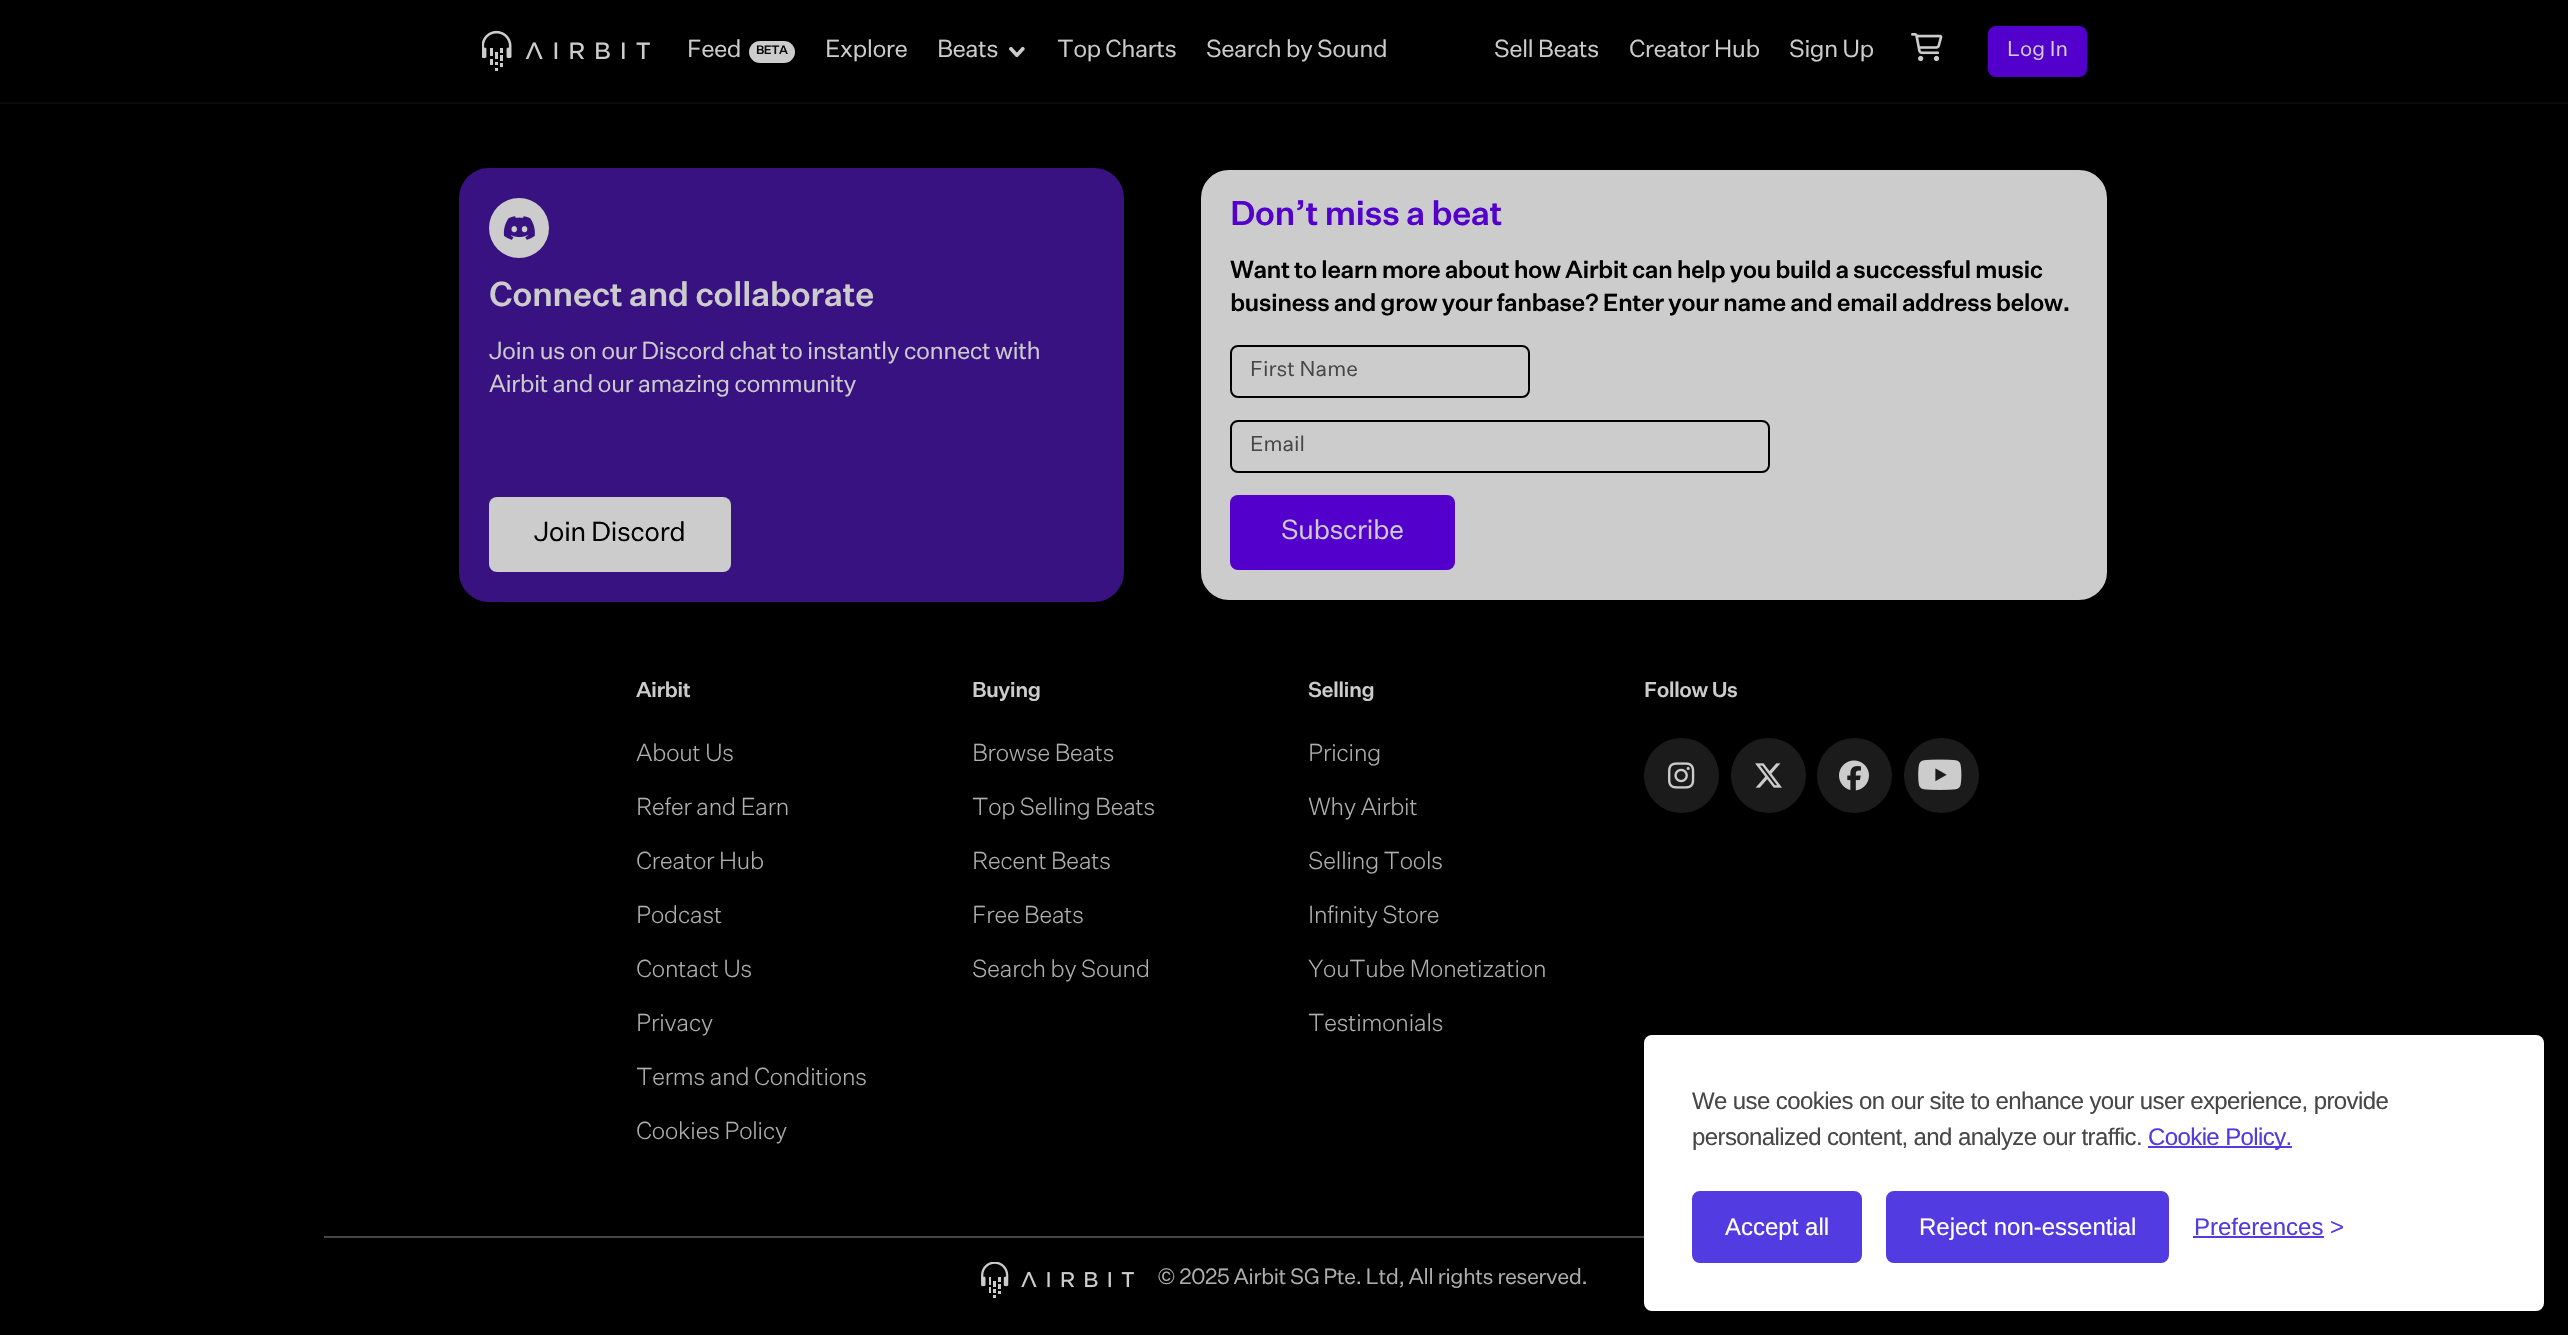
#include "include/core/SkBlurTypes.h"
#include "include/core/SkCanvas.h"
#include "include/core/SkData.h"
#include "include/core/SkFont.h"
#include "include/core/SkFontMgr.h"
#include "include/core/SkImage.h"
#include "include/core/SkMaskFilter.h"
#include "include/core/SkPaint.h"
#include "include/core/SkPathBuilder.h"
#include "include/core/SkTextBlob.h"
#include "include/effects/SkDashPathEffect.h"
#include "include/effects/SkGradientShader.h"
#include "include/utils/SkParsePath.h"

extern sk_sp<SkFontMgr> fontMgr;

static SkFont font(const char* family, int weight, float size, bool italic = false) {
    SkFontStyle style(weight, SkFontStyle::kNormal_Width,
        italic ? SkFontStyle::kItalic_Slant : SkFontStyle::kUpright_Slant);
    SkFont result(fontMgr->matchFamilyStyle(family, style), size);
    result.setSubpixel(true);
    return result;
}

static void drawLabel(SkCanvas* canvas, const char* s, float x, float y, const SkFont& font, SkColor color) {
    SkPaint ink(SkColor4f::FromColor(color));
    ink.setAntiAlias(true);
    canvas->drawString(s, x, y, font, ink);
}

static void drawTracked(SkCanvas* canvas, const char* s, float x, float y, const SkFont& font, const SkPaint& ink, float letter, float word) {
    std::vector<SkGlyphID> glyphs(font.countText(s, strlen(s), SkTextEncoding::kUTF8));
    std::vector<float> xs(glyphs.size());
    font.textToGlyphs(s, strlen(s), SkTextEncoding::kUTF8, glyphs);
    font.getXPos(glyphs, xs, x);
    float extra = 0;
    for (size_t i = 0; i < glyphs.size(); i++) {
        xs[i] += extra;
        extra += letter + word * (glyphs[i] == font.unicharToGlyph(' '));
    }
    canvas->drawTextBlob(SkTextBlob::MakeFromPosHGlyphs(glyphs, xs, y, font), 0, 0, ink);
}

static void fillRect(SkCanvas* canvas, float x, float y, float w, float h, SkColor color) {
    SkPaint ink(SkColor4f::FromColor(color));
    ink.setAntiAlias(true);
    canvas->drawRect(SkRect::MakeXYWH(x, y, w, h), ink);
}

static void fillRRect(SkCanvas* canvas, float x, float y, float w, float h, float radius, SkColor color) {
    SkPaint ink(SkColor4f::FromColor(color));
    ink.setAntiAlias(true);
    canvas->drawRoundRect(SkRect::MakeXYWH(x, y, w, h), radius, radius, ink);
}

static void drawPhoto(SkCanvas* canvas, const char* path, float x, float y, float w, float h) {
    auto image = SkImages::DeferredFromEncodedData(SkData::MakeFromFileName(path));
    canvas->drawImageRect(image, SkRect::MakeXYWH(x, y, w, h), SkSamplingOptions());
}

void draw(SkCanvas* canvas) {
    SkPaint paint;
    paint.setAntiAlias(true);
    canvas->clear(0xFF000000);
    fillRect(canvas, 0, 102, 2568, 2, 0xFF0A0A0A);
    drawPhoto(canvas, "assets/img1.png", 482, 30, 168, 41);
    SkFont font1 = font("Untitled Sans", 400, 24);
    paint.setColor(0xFFCCCCCC);
    drawTracked(canvas, "Feed", 687, 57, font1, paint, -0.6f, 0);
    fillRRect(canvas, 749, 41, 46, 22, 11, 0xFFCCCCCC);
    SkFont font2 = font("Untitled Sans", 500, 12);
    paint.setColor(0xFF0A0A0A);
    drawTracked(canvas, "BETA", 756, 54, font2, paint, -0.6f, 0);
    paint.setColor(0xFFCCCCCC);
    drawTracked(canvas, "Explore", 825, 57, font1, paint, -0.6f, 0);
    drawTracked(canvas, "Beats", 937, 57, font1, paint, -0.6f, 0);
    drawPhoto(canvas, "assets/img2.png", 1009, 47, 16, 10);
    drawTracked(canvas, "Top Charts", 1057, 57, font1, paint, -0.6f, 0);
    drawTracked(canvas, "Search by Sound", 1206, 57, font1, paint, -0.6f, 0);
    drawTracked(canvas, "Sell Beats", 1494, 57, font1, paint, -0.6f, 0);
    drawTracked(canvas, "Creator Hub", 1629, 57, font1, paint, -0.6f, 0);
    drawTracked(canvas, "Sign Up", 1789, 57, font1, paint, -0.6f, 0);
    drawPhoto(canvas, "assets/img3.png", 1911, 33, 32, 29);
    fillRRect(canvas, 1988, 26, 99, 51, 8, 0xFF5400CC);
    SkFont font3 = font("Untitled Sans", 400, 21);
    drawLabel(canvas, "Log In", 2007, 56, font3, 0xFFCCCCCC);
    fillRRect(canvas, 459, 168, 665, 434, 30, 0xFF381280);
    canvas->drawCircle(519, 228, 30, paint);
    drawPhoto(canvas, "assets/img4.png", 503, 216, 32, 24);
    SkFont font4 = font("Untitled Sans", 500, 33.75f);
    drawTracked(canvas, "Connect and collaborate", 489, 306, font4, paint, -0.6f, 0);
    drawTracked(canvas, "Join us on our Discord chat to instantly connect with", 489, 359, font1, paint, -0.6f, 0);
    drawTracked(canvas, "Airbit and our amazing community", 489, 392, font1, paint, -0.6f, 0);
    fillRRect(canvas, 489, 497, 242, 75, 8, 0xFFCCCCCC);
    SkFont font5 = font("Untitled Sans", 400, 27);
    paint.setColor(0xFF000000);
    drawTracked(canvas, "Join Discord", 534, 541, font5, paint, -0.6f, 0);
    paint.setColor(0xFFCCCCCC);
    canvas->drawRoundRect(SkRect::MakeXYWH(1200, 169, 908, 432), 29, 29, paint);
    paint.setStroke(true);
    paint.setStrokeWidth(2);
    paint.setColor(0xFF000000);
    canvas->drawRoundRect(SkRect::MakeXYWH(1200, 169, 908, 432), 29, 29, paint);
    paint.setStroke(false);
    paint.setColor(0xFF5400CC);
    drawTracked(canvas, "Don’t miss a beat", 1230, 225, font4, paint, -0.6f, 0);
    SkFont font6 = font("Untitled Sans", 500, 24);
    paint.setColor(0xFF000000);
    drawTracked(canvas, "Want to learn more about how Airbit can help you build a successful music", 1230, 278, font6, paint, -0.6f, 0);
    drawTracked(canvas, "business and grow your fanbase? Enter your name and email address below.", 1230, 311, font6, paint, -0.6f, 0);
    paint.setStroke(true);
    canvas->drawRoundRect(SkRect::MakeXYWH(1231, 346, 298, 51), 7, 7, paint);
    drawLabel(canvas, "First Name", 1250, 376, font3, 0xFF474747);
    canvas->drawRoundRect(SkRect::MakeXYWH(1231, 421, 538, 51), 7, 7, paint);
    drawLabel(canvas, "Email", 1250, 451, font3, 0xFF474747);
    fillRRect(canvas, 1230, 495, 225, 75, 8, 0xFF5400CC);
    paint.setStroke(false);
    paint.setColor(0xFFCCCCCC);
    drawTracked(canvas, "Subscribe", 1281, 539, font5, paint, -0.6f, 0);
    fillRect(canvas, 324, 1236, 1320, 2, 0xFF464646);
    SkFont font7 = font("Untitled Sans", 500, 21);
    drawTracked(canvas, "Airbit", 636, 697, font7, paint, -0.6f, 0);
    SkFont font8 = font("Untitled Sans", 300, 24);
    paint.setColor(0xFFAEAEAE);
    drawTracked(canvas, "About Us", 636, 761, font8, paint, -0.6f, 0);
    drawTracked(canvas, "Refer and Earn", 636, 815, font8, paint, -0.6f, 0);
    drawTracked(canvas, "Creator Hub", 636, 869, font8, paint, -0.6f, 0);
    drawTracked(canvas, "Podcast", 636, 923, font8, paint, -0.6f, 0);
    drawTracked(canvas, "Contact Us", 636, 977, font8, paint, -0.6f, 0);
    drawTracked(canvas, "Privacy", 636, 1031, font8, paint, -0.6f, 0);
    drawTracked(canvas, "Terms and Conditions", 636, 1085, font8, paint, -0.6f, 0);
    drawTracked(canvas, "Cookies Policy", 636, 1139, font8, paint, -0.6f, 0);
    paint.setColor(0xFFCCCCCC);
    drawTracked(canvas, "Buying", 972, 697, font7, paint, -0.6f, 0);
    paint.setColor(0xFFAEAEAE);
    drawTracked(canvas, "Browse Beats", 972, 761, font8, paint, -0.6f, 0);
    drawTracked(canvas, "Top Selling Beats", 972, 815, font8, paint, -0.6f, 0);
    drawTracked(canvas, "Recent Beats", 972, 869, font8, paint, -0.6f, 0);
    drawTracked(canvas, "Free Beats", 972, 923, font8, paint, -0.6f, 0);
    drawTracked(canvas, "Search by Sound", 972, 977, font8, paint, -0.6f, 0);
    paint.setColor(0xFFCCCCCC);
    drawTracked(canvas, "Selling", 1308, 697, font7, paint, -0.6f, 0);
    paint.setColor(0xFFAEAEAE);
    drawTracked(canvas, "Pricing", 1308, 761, font8, paint, -0.6f, 0);
    drawTracked(canvas, "Why Airbit", 1308, 815, font8, paint, -0.6f, 0);
    drawTracked(canvas, "Selling Tools", 1308, 869, font8, paint, -0.6f, 0);
    drawTracked(canvas, "Infinity Store", 1308, 923, font8, paint, -0.6f, 0);
    drawTracked(canvas, "YouTube Monetization", 1308, 977, font8, paint, -0.6f, 0);
    drawTracked(canvas, "Testimonials", 1308, 1031, font8, paint, -0.6f, 0);
    paint.setColor(0xFFCCCCCC);
    drawTracked(canvas, "Follow Us", 1644, 697, font7, paint, -0.6f, 0);
    paint.setColor(0xFF1B1B1B);
    canvas->drawCircle(1681.5f, 775.5f, 37.5f, paint);
    drawPhoto(canvas, "assets/img5.png", 1668, 762, 27, 27);
    canvas->drawCircle(1768.5f, 775.5f, 37.5f, paint);
    drawPhoto(canvas, "assets/img6.png", 1755, 763, 27, 25);
    canvas->drawCircle(1854.5f, 775.5f, 37.5f, paint);
    drawPhoto(canvas, "assets/img7.png", 1839, 760, 30, 31);
    canvas->drawCircle(1941.5f, 775.5f, 37.5f, paint);
    drawPhoto(canvas, "assets/img8.png", 1918, 759, 44, 31);
    drawPhoto(canvas, "assets/img9.png", 981, 1262, 153, 36);
    SkFont font9 = font("Untitled Sans", 400, 21.6f);
    paint.setColor(0xFFAEAEAE);
    drawTracked(canvas, "© 2025 Airbit SG Pte. Ltd, All rights reserved.", 1157, 1284, font9, paint, -0.6f, 0);
    fillRRect(canvas, 1644, 1035, 900, 276, 8, 0xFFFFFFFF);
    SkFont font10 = font("Liberation Sans", 400, 24);
    paint.setColor(0xFF474747);
    drawTracked(canvas, "We use cookies on our site to enhance your user experience, provide", 1692, 1109, font10, paint, -0.6f, 0);
    drawTracked(canvas, "personalized content, and analyze our traffic.", 1692, 1145, font10, paint, -0.6f, 0);
    fillRect(canvas, 2148, 1146, 144, 2, 0xFF533BE2);
    paint.setColor(0xFF533BE2);
    drawTracked(canvas, "Cookie Policy.", 2148, 1145, font10, paint, -0.6f, 0);
    canvas->drawRoundRect(SkRect::MakeXYWH(1693.5f, 1192.5f, 167, 69), 6.5f, 6.5f, paint);
    paint.setStroke(true);
    paint.setStrokeWidth(3);
    canvas->drawRoundRect(SkRect::MakeXYWH(1693.5f, 1192.5f, 167, 69), 6.5f, 6.5f, paint);
    drawLabel(canvas, "Accept all", 1725, 1235, font10, 0xFFFFFFFF);
    paint.setStroke(false);
    canvas->drawRoundRect(SkRect::MakeXYWH(1887.5f, 1192.5f, 280, 69), 6.5f, 6.5f, paint);
    paint.setStroke(true);
    canvas->drawRoundRect(SkRect::MakeXYWH(1887.5f, 1192.5f, 280, 69), 6.5f, 6.5f, paint);
    drawLabel(canvas, "Reject non-essential", 1919, 1235, font10, 0xFFFFFFFF);
    drawLabel(canvas, "Preferences", 2194, 1235, font10, 0xFF533BE2);
    fillRect(canvas, 2193, 1236, 131, 2, 0xFF533BE2);
    drawLabel(canvas, ">", 2330, 1235, font10, 0xFF533BE2);
}
